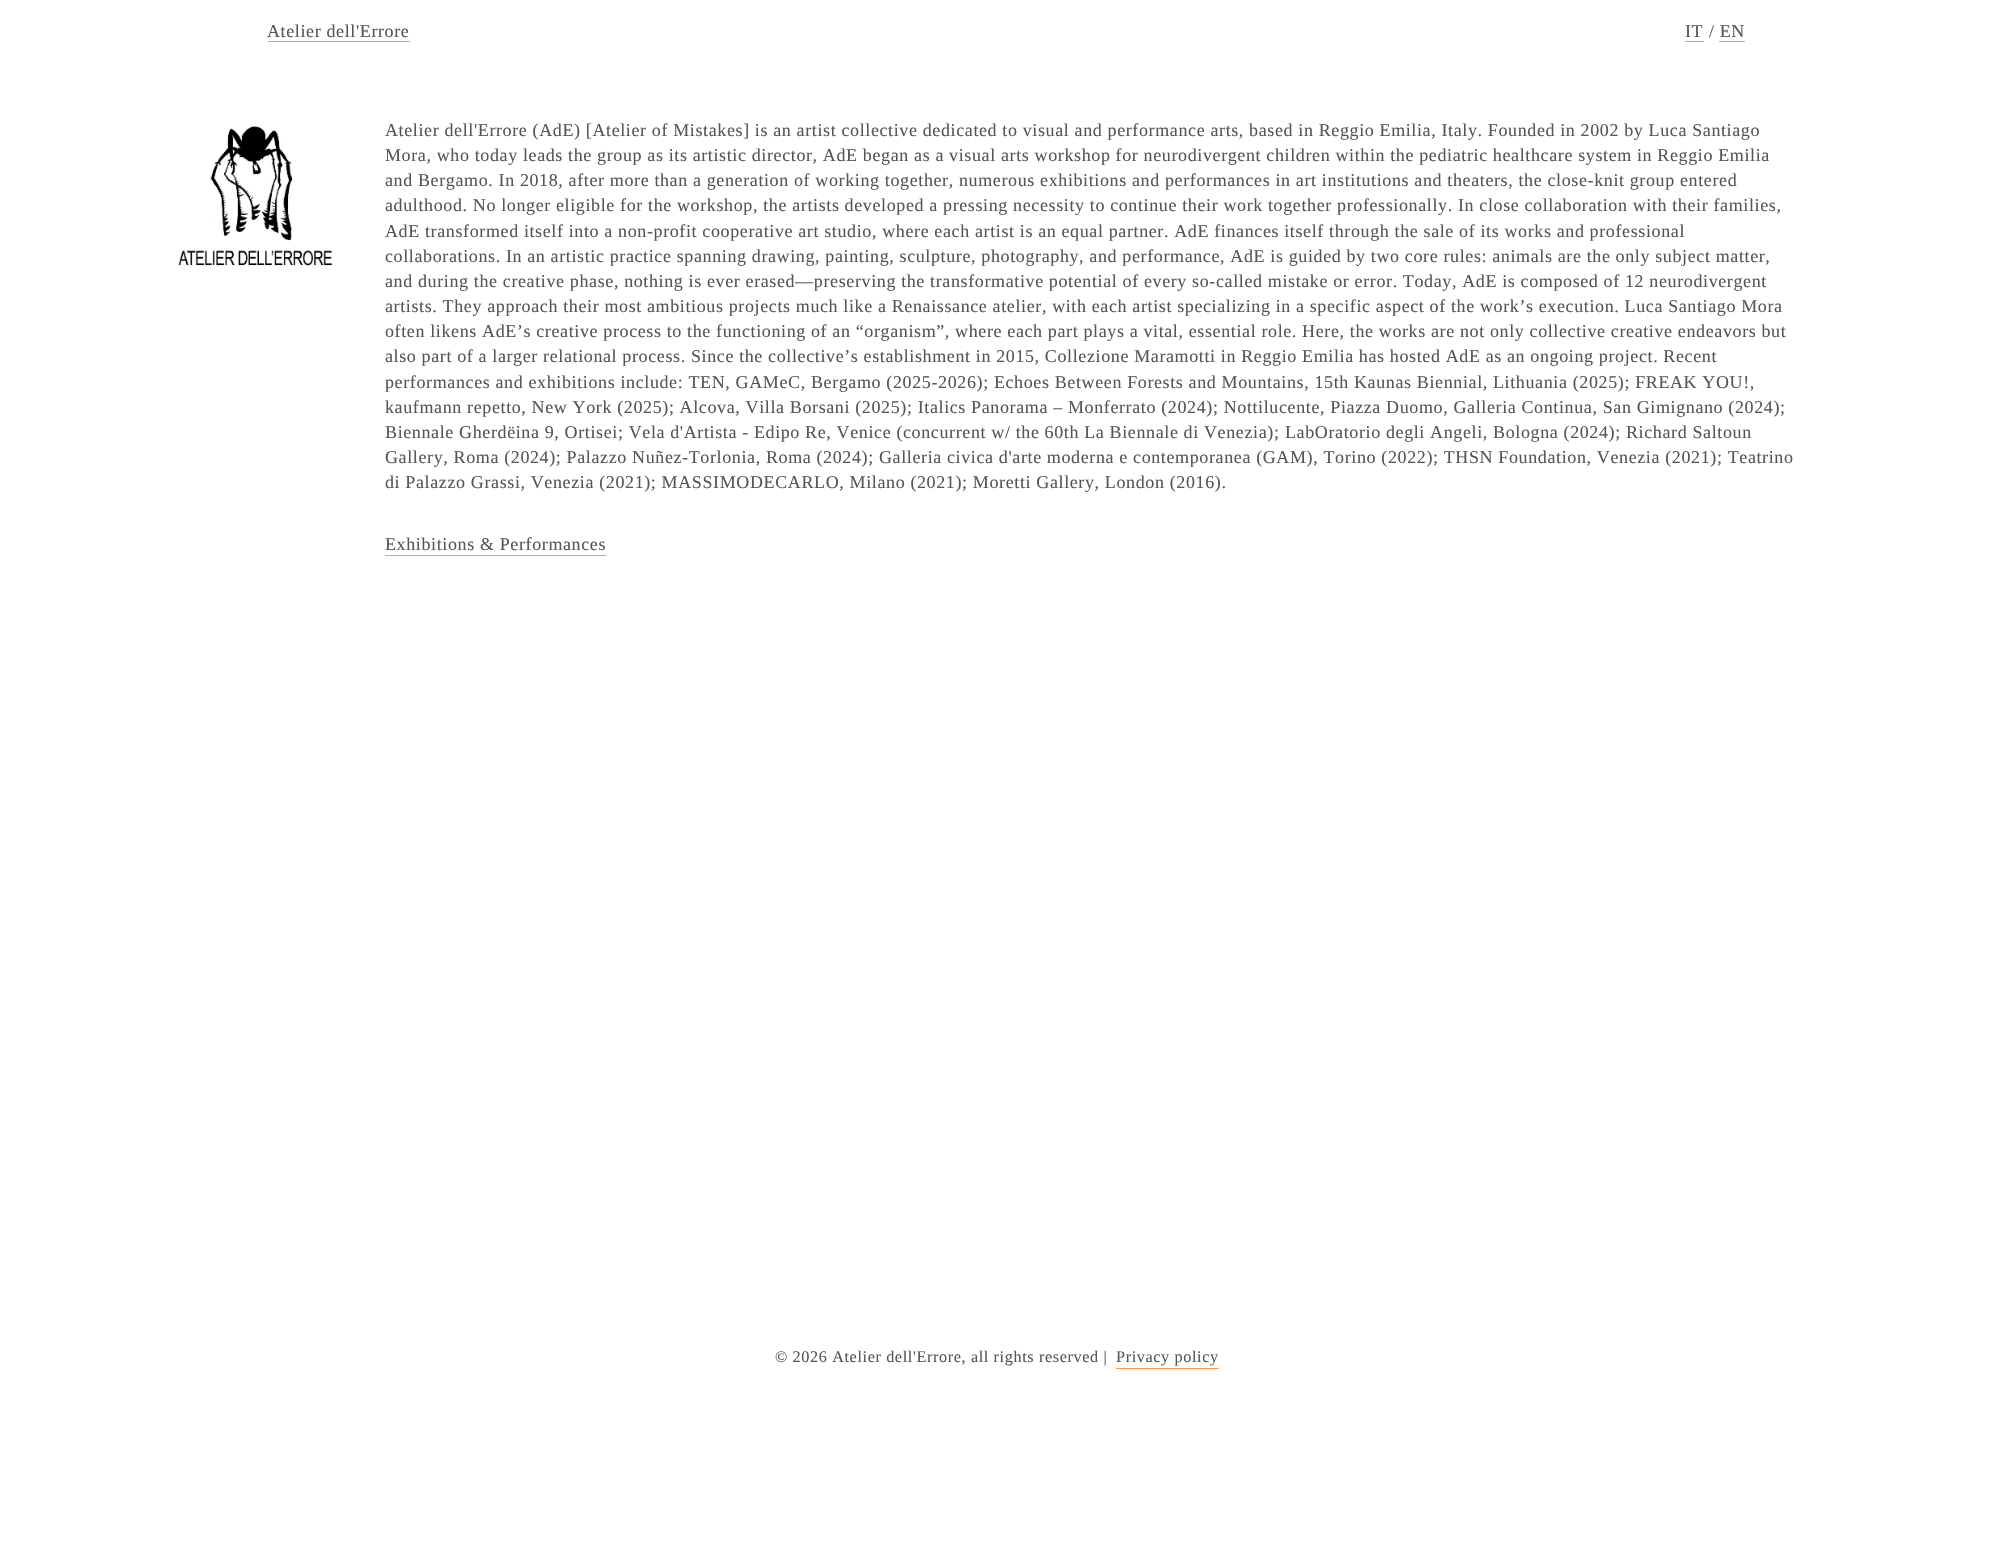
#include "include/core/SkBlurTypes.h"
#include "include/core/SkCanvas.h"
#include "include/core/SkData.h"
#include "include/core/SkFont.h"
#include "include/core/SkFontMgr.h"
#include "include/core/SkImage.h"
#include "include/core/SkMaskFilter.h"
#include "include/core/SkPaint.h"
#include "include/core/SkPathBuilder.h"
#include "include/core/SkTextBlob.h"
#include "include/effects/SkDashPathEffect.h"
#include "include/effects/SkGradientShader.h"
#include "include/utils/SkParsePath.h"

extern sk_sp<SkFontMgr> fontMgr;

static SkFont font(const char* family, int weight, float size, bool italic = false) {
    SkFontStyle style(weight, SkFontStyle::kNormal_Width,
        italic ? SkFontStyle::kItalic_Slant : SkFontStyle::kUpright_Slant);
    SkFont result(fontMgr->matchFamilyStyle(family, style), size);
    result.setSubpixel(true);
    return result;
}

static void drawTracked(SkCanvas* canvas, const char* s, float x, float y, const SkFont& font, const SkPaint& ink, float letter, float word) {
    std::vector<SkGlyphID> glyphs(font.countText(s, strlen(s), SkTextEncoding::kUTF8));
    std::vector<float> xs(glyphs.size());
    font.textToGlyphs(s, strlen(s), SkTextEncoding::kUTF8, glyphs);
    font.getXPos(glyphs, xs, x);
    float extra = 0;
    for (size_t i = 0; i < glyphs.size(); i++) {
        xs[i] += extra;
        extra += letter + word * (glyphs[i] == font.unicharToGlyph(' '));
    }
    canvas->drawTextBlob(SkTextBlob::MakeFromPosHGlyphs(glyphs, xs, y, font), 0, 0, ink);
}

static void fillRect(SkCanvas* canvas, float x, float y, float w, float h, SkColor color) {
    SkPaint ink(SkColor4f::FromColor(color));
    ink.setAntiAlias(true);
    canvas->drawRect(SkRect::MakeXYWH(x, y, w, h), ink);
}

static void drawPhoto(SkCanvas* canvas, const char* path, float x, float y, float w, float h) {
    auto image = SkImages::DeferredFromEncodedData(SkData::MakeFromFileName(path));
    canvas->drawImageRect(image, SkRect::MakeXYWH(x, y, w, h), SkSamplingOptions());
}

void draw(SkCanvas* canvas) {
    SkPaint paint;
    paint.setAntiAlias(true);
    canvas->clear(0xFFFFFFFF);
    SkFont font1 = font("Liberation Serif", 400, 18);
    paint.setColor(0xFF555555);
    drawTracked(canvas, "Atelier dell'Errore", 267, 37, font1, paint, 0.62f, 0);
    fillRect(canvas, 268, 41, 142, 1, 0xFFFD9753);
    drawTracked(canvas, "IT", 1685, 37, font1, paint, 0.62f, 0);
    fillRect(canvas, 1685, 41, 19, 1, 0xFFFD9753);
    drawTracked(canvas, "/ EN", 1709, 37, font1, paint, 0.62f, 0);
    fillRect(canvas, 1719, 41, 26, 1, 0xFFFD9753);
    drawPhoto(canvas, "assets/img1.png", 178, 126, 155, 140);
    drawTracked(canvas, "Atelier dell'Errore (AdE) [Atelier of Mistakes] is an artist collective dedicated to visual and performance arts, based in Reggio Emilia, Italy. Founded in 2002 by Luca Santiago", 385, 136, font1, paint, 0.62f, 0);
    drawTracked(canvas, "Mora, who today leads the group as its artistic director, AdE began as a visual arts workshop for neurodivergent children within the pediatric healthcare system in Reggio Emilia", 385, 161, font1, paint, 0.62f, 0);
    drawTracked(canvas, "and Bergamo. In 2018, after more than a generation of working together, numerous exhibitions and performances in art institutions and theaters, the close-knit group entered", 385, 186, font1, paint, 0.62f, 0);
    drawTracked(canvas, "adulthood. No longer eligible for the workshop, the artists developed a pressing necessity to continue their work together professionally. In close collaboration with their families,", 385, 211, font1, paint, 0.62f, 0);
    drawTracked(canvas, "AdE transformed itself into a non-profit cooperative art studio, where each artist is an equal partner. AdE finances itself through the sale of its works and professional", 385, 237, font1, paint, 0.62f, 0);
    drawTracked(canvas, "collaborations. In an artistic practice spanning drawing, painting, sculpture, photography, and performance, AdE is guided by two core rules: animals are the only subject matter,", 385, 262, font1, paint, 0.62f, 0);
    drawTracked(canvas, "and during the creative phase, nothing is ever erased—preserving the transformative potential of every so-called mistake or error. Today, AdE is composed of 12 neurodivergent", 385, 287, font1, paint, 0.62f, 0);
    drawTracked(canvas, "artists. They approach their most ambitious projects much like a Renaissance atelier, with each artist specializing in a specific aspect of the work’s execution. Luca Santiago Mora", 385, 312, font1, paint, 0.62f, 0);
    drawTracked(canvas, "often likens AdE’s creative process to the functioning of an “organism”, where each part plays a vital, essential role. Here, the works are not only collective creative endeavors but", 385, 337, font1, paint, 0.62f, 0);
    drawTracked(canvas, "also part of a larger relational process. Since the collective’s establishment in 2015, Collezione Maramotti in Reggio Emilia has hosted AdE as an ongoing project. Recent", 385, 362, font1, paint, 0.62f, 0);
    drawTracked(canvas, "performances and exhibitions include: TEN, GAMeC, Bergamo (2025-2026); Echoes Between Forests and Mountains, 15th Kaunas Biennial, Lithuania (2025); FREAK YOU!,", 385, 388, font1, paint, 0.62f, 0);
    drawTracked(canvas, "kaufmann repetto, New York (2025); Alcova, Villa Borsani (2025); Italics Panorama – Monferrato (2024); Nottilucente, Piazza Duomo, Galleria Continua, San Gimignano (2024);", 385, 413, font1, paint, 0.62f, 0);
    drawTracked(canvas, "Biennale Gherdëina 9, Ortisei; Vela d'Artista - Edipo Re, Venice (concurrent w/ the 60th La Biennale di Venezia);", 385, 438, font1, paint, 0.62f, 0);
    drawTracked(canvas, "LabOratorio degli Angeli, Bologna (2024); Richard Saltoun", 1285, 438, font1, paint, 0.62f, 0);
    drawTracked(canvas, "Gallery, Roma (2024); Palazzo Nuñez-Torlonia, Roma (2024); Galleria civica d'arte moderna e contemporanea (GAM), Torino (2022); THSN Foundation, Venezia (2021); Teatrino", 385, 463, font1, paint, 0.62f, 0);
    drawTracked(canvas, "di Palazzo Grassi, Venezia (2021); MASSIMODECARLO, Milano (2021); Moretti Gallery, London (2016).", 385, 488, font1, paint, 0.62f, 0);
    drawTracked(canvas, "Exhibitions & Performances", 385, 550, font1, paint, 0.62f, 0);
    fillRect(canvas, 385, 555, 221, 1, 0xFFFD9753);
    SkFont font2 = font("Liberation Serif", 400, 16.2f);
    drawTracked(canvas, "© 2026 Atelier dell'Errore, all rights reserved |", 775, 1362, font2, paint, 0.62f, 0);
    drawTracked(canvas, "Privacy policy", 1116, 1362, font2, paint, 0.62f, 0);
    fillRect(canvas, 1116, 1368, 103, 1, 0xFFFD9753);
}
